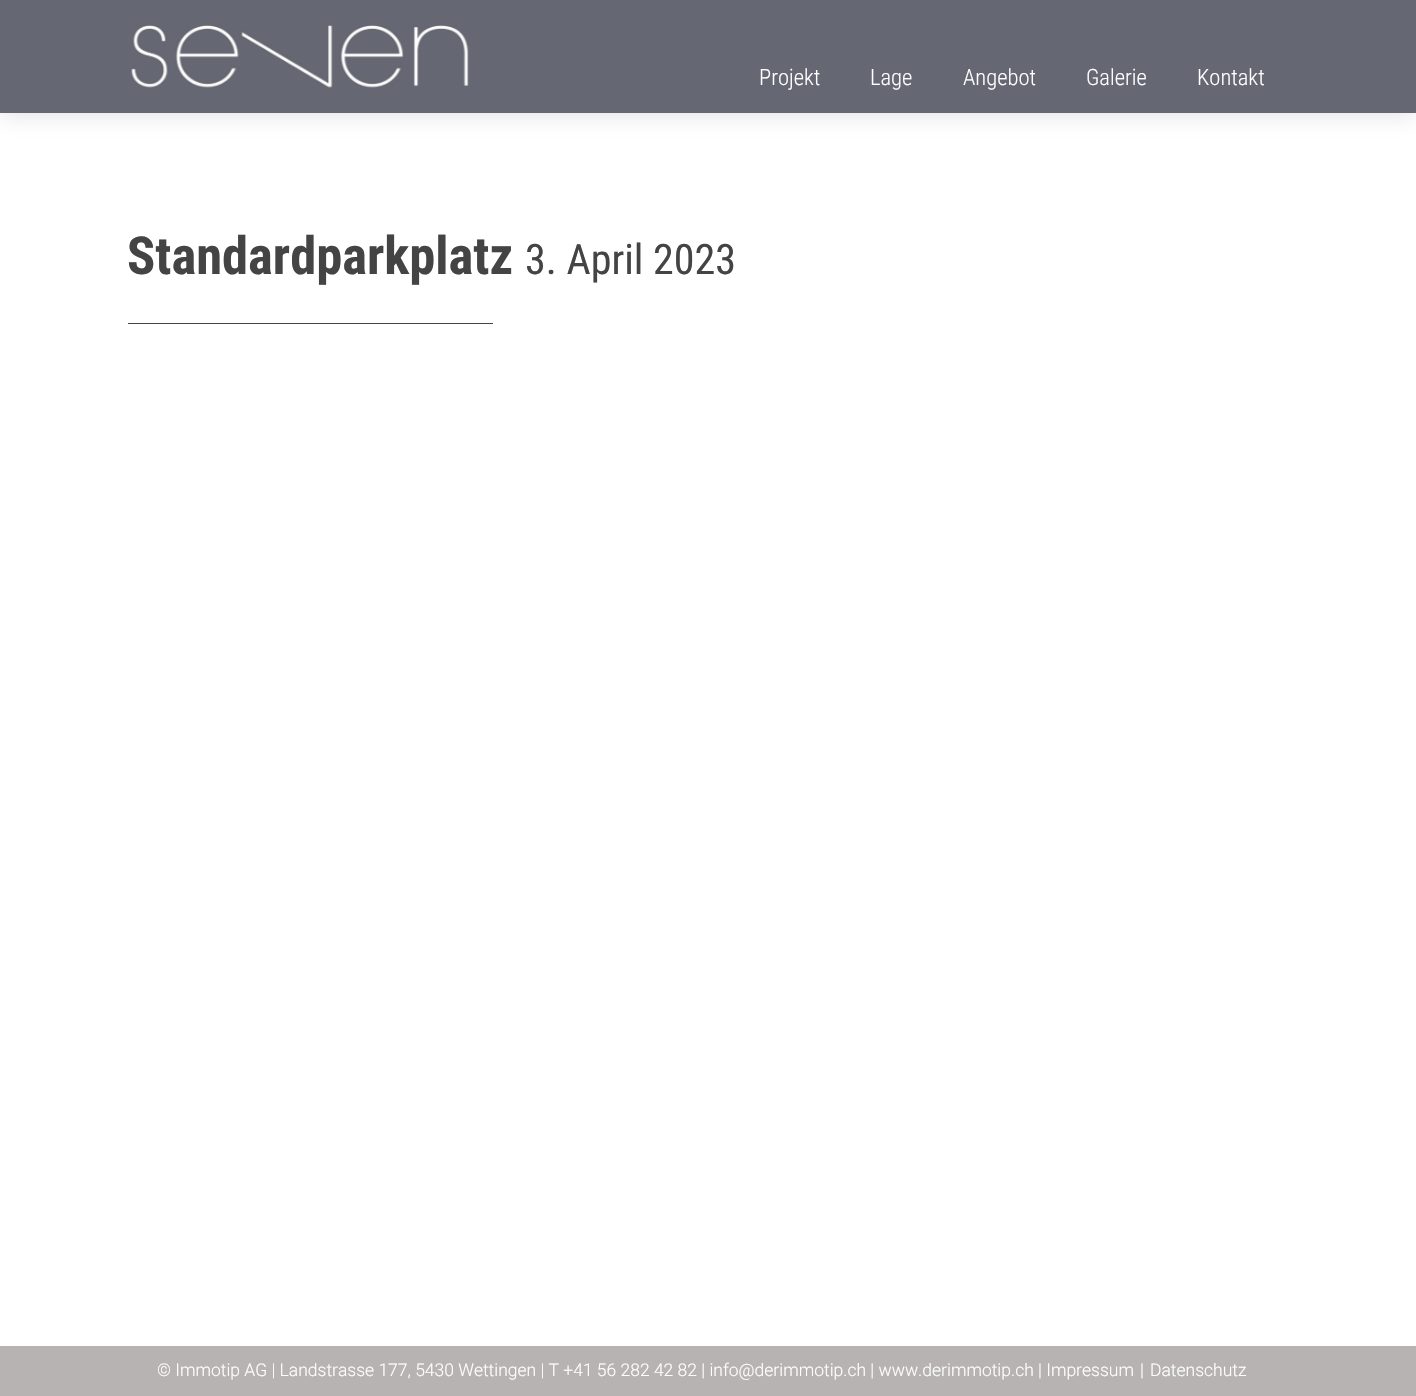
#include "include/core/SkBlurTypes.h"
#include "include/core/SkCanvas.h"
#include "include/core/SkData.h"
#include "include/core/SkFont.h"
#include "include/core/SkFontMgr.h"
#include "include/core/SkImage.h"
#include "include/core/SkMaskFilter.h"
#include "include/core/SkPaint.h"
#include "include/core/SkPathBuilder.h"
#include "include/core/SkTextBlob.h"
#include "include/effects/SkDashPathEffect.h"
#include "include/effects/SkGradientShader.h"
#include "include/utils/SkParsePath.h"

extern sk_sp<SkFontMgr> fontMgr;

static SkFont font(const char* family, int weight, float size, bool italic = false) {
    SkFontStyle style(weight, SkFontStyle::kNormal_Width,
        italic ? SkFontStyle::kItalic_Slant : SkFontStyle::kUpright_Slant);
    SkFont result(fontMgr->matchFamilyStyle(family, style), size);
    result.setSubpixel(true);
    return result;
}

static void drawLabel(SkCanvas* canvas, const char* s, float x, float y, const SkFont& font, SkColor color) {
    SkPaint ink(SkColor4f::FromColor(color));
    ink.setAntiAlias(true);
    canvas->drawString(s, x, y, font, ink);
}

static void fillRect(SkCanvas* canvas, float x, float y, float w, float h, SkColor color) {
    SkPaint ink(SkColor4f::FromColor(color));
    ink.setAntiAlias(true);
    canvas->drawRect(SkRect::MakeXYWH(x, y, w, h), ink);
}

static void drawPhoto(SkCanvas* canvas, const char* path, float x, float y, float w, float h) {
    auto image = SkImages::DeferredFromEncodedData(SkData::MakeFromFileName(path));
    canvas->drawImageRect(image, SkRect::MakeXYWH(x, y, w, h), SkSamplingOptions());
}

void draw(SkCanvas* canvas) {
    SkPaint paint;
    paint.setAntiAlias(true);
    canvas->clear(0xFFFFFFFF);
    paint.setColor(0x4DA09C9C);
    paint.setMaskFilter(SkMaskFilter::MakeBlur(kNormal_SkBlurStyle, 11));
    canvas->drawRect(SkRect::MakeXYWH(0, 3, 1416, 112), paint);
    paint.setMaskFilter(nullptr);
    fillRect(canvas, 0, 0, 1416, 113, 0xFF656773);
    drawPhoto(canvas, "assets/img1.png", 131, 25, 338, 63);
    SkFont font1 = font("Roboto Condensed", 300, 22.5f);
    drawLabel(canvas, "Projekt", 759, 85, font1, 0xFFFFFFFF);
    drawLabel(canvas, "Lage", 870, 85, font1, 0xFFFFFFFF);
    drawLabel(canvas, "Angebot", 963, 85, font1, 0xFFFFFFFF);
    drawLabel(canvas, "Galerie", 1086, 85, font1, 0xFFFFFFFF);
    drawLabel(canvas, "Kontakt", 1197, 85, font1, 0xFFFFFFFF);
    SkFont font2 = font("Roboto Condensed", 700, 52.5f);
    drawLabel(canvas, "Standardparkplatz", 127, 274, font2, 0xFF444444);
    SkFont font3 = font("Roboto Condensed", 400, 42);
    drawLabel(canvas, "3. April 2023", 525, 274, font3, 0xFF444444);
    fillRect(canvas, 128, 323, 365, 1, 0xFF444444);
    fillRect(canvas, 0, 1346, 1416, 50, 0xFFB7B3B3);
    SkFont font4 = font("Roboto", 300, 17.5f);
    drawLabel(canvas, "© Immotip AG | Landstrasse 177, 5430 Wettingen | T +41 56 282 42 82 | info@derimmotip.ch | www.derimmotip.ch | Impressum", 157, 1376, font4, 0xFFFFFFFF);
    drawLabel(canvas, "|", 1140, 1376, font4, 0xFFFFFFFF);
    drawLabel(canvas, "Datenschutz", 1150, 1376, font4, 0xFFFFFFFF);
}
